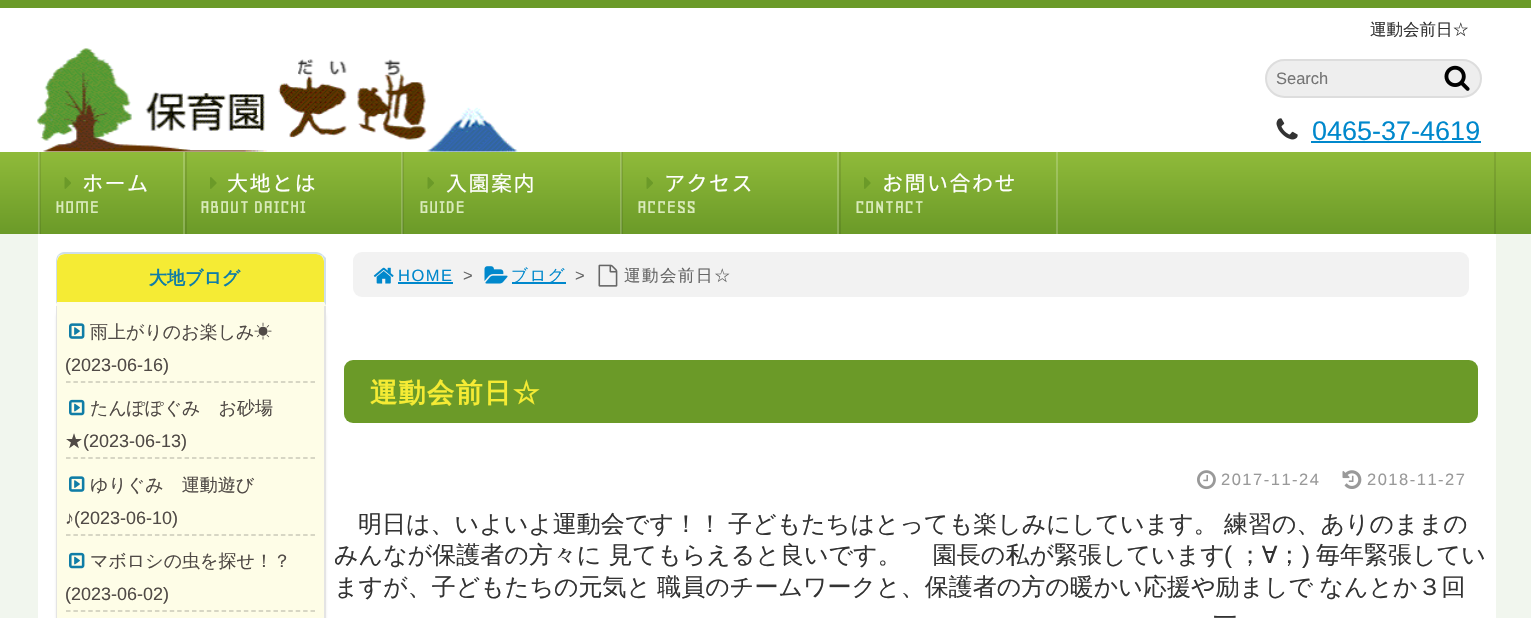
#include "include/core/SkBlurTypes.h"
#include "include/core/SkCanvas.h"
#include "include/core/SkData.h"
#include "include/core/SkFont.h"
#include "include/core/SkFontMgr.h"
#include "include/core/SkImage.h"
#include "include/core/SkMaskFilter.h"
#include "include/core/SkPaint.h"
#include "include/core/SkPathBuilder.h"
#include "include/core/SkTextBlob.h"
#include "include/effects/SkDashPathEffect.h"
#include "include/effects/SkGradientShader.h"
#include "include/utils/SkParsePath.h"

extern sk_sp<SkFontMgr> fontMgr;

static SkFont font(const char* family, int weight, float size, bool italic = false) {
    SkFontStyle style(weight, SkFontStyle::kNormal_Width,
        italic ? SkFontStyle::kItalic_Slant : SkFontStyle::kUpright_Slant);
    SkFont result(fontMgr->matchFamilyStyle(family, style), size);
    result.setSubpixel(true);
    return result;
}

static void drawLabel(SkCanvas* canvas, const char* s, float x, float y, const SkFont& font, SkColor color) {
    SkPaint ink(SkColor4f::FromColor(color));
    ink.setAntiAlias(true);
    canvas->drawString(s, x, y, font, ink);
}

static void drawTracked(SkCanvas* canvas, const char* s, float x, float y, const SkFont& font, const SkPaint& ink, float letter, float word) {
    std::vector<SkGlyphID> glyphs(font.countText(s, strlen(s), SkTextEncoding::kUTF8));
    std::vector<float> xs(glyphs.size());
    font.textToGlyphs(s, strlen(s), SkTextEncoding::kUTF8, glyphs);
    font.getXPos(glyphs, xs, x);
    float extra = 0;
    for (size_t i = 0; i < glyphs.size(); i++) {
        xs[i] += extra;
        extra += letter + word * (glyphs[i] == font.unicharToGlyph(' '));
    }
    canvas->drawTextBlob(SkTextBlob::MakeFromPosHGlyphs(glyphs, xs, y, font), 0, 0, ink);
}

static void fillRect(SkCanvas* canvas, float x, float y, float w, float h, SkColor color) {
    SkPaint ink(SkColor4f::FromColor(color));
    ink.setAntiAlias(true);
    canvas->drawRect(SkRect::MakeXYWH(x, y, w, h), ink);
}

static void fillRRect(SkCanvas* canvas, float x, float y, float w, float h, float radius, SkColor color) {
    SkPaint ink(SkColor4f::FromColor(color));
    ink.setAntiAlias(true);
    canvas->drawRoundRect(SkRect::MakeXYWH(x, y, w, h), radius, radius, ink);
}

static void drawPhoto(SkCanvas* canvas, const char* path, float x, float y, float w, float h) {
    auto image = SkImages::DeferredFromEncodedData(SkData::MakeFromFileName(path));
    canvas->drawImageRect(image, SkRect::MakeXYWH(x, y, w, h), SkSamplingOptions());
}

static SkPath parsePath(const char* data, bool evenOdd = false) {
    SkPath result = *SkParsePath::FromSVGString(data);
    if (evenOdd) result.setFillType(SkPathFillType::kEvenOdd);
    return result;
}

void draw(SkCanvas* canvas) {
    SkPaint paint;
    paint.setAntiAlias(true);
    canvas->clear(0xFFFFFFFF);
    fillRect(canvas, 0, 0, 1531, 8, 0xFF6B9A28);
    SkFont font1 = font("WenQuanYi Zen Hei", 500, 16.5f);
    drawLabel(canvas, "運動会前日☆", 1370, 35, font1, 0xFF333333);
    drawPhoto(canvas, "assets/img1.png", 37, 48, 481, 104);
    paint.setColor(0xFFEEEEEE);
    canvas->drawRoundRect(SkRect::MakeXYWH(1266, 60, 215, 37), 18.5f, 18.5f, paint);
    paint.setStroke(true);
    paint.setStrokeWidth(2);
    paint.setColor(0xFFDDDDDD);
    canvas->drawRoundRect(SkRect::MakeXYWH(1266, 60, 215, 37), 18.5f, 18.5f, paint);
    SkFont font2 = font("Liberation Sans", 400, 16.5f);
    drawLabel(canvas, "Search", 1276, 84, font2, 0xFF757575);
    drawPhoto(canvas, "assets/img2.png", 1444, 65, 26, 26);
    drawPhoto(canvas, "assets/img3.png", 1276, 118, 22, 22);
    SkFont font3 = font("Liberation Sans", 400, 27);
    drawLabel(canvas, "0465-37-4619", 1312, 140, font3, 0xFF0088CC);
    fillRect(canvas, 1311, 141, 170, 2, 0xFF0088CC);
    paint.setStroke(false);
    {
        const SkColor colors[] = {0xFF90BB3A, 0xFF6B9A28};
        const float stops[] = {0, 1};
        const SkPoint ends[] = {{766, 151}, {766, 234}};
        paint.setShader(SkGradientShader::MakeLinear(ends, colors, stops, 2, SkTileMode::kClamp));
        paint.setAlpha(255);
    }
    canvas->drawRect(SkRect::MakeXYWH(0, 152, 1531, 82), paint);
    {
        const SkColor colors[] = {0xFF82A834, 0xFF608B24};
        const float stops[] = {0, 1};
        const SkPoint ends[] = {{766, 151}, {766, 234}};
        paint.setShader(SkGradientShader::MakeLinear(ends, colors, stops, 2, SkTileMode::kClamp));
        paint.setAlpha(255);
    }
    canvas->drawRect(SkRect::MakeXYWH(839, 152, 2, 82), paint);
    {
        const SkColor colors[] = {0xFFA6C961, 0xFF89AE53};
        const float stops[] = {0, 1};
        const SkPoint ends[] = {{766, 151}, {766, 234}};
        paint.setShader(SkGradientShader::MakeLinear(ends, colors, stops, 2, SkTileMode::kClamp));
        paint.setAlpha(255);
    }
    canvas->drawRect(SkRect::MakeXYWH(1056, 152, 2, 82), paint);
    {
        const SkColor colors[] = {0xFF82A834, 0xFF608B24};
        const float stops[] = {0, 1};
        const SkPoint ends[] = {{766, 151}, {766, 234}};
        paint.setShader(SkGradientShader::MakeLinear(ends, colors, stops, 2, SkTileMode::kClamp));
        paint.setAlpha(255);
    }
    canvas->drawRect(SkRect::MakeXYWH(622, 152, 1, 82), paint);
    {
        const SkColor colors[] = {0xFFA6C961, 0xFF89AE53};
        const float stops[] = {0, 1};
        const SkPoint ends[] = {{766, 151}, {766, 234}};
        paint.setShader(SkGradientShader::MakeLinear(ends, colors, stops, 2, SkTileMode::kClamp));
        paint.setAlpha(255);
    }
    canvas->drawRect(SkRect::MakeXYWH(837, 152, 2, 82), paint);
    {
        const SkColor colors[] = {0xFF82A834, 0xFF608B24};
        const float stops[] = {0, 1};
        const SkPoint ends[] = {{766, 151}, {766, 234}};
        paint.setShader(SkGradientShader::MakeLinear(ends, colors, stops, 2, SkTileMode::kClamp));
        paint.setAlpha(255);
    }
    canvas->drawRect(SkRect::MakeXYWH(403, 152, 1, 82), paint);
    {
        const SkColor colors[] = {0xFFA6C961, 0xFF89AE53};
        const float stops[] = {0, 1};
        const SkPoint ends[] = {{766, 151}, {766, 234}};
        paint.setShader(SkGradientShader::MakeLinear(ends, colors, stops, 2, SkTileMode::kClamp));
        paint.setAlpha(255);
    }
    canvas->drawRect(SkRect::MakeXYWH(620, 152, 1, 82), paint);
    {
        const SkColor colors[] = {0xFF95B557, 0xFF7B9D4B};
        const float stops[] = {0, 1};
        const SkPoint ends[] = {{766, 151}, {766, 234}};
        paint.setShader(SkGradientShader::MakeLinear(ends, colors, stops, 2, SkTileMode::kClamp));
        paint.setAlpha(255);
    }
    canvas->drawRect(SkRect::MakeXYWH(621, 152, 1, 82), paint);
    {
        const SkColor colors[] = {0xFF82A834, 0xFF608B24};
        const float stops[] = {0, 1};
        const SkPoint ends[] = {{766, 151}, {766, 234}};
        paint.setShader(SkGradientShader::MakeLinear(ends, colors, stops, 2, SkTileMode::kClamp));
        paint.setAlpha(255);
    }
    canvas->drawRect(SkRect::MakeXYWH(185, 152, 2, 82), paint);
    {
        const SkColor colors[] = {0xFFA6C961, 0xFF89AE53};
        const float stops[] = {0, 1};
        const SkPoint ends[] = {{766, 151}, {766, 234}};
        paint.setShader(SkGradientShader::MakeLinear(ends, colors, stops, 2, SkTileMode::kClamp));
        paint.setAlpha(255);
    }
    canvas->drawRect(SkRect::MakeXYWH(401, 152, 1, 82), paint);
    {
        const SkColor colors[] = {0xFF95B557, 0xFF7B9D4B};
        const float stops[] = {0, 1};
        const SkPoint ends[] = {{766, 151}, {766, 234}};
        paint.setShader(SkGradientShader::MakeLinear(ends, colors, stops, 2, SkTileMode::kClamp));
        paint.setAlpha(255);
    }
    canvas->drawRect(SkRect::MakeXYWH(402, 152, 1, 82), paint);
    {
        const SkColor colors[] = {0xFF82A834, 0xFF608B24};
        const float stops[] = {0, 1};
        const SkPoint ends[] = {{766, 151}, {766, 234}};
        paint.setShader(SkGradientShader::MakeLinear(ends, colors, stops, 2, SkTileMode::kClamp));
        paint.setAlpha(255);
    }
    canvas->drawRect(SkRect::MakeXYWH(40, 152, 1, 82), paint);
    {
        const SkColor colors[] = {0xFFA6C961, 0xFF89AE53};
        const float stops[] = {0, 1};
        const SkPoint ends[] = {{766, 151}, {766, 234}};
        paint.setShader(SkGradientShader::MakeLinear(ends, colors, stops, 2, SkTileMode::kClamp));
        paint.setAlpha(255);
    }
    canvas->drawRect(SkRect::MakeXYWH(183, 152, 2, 82), paint);
    canvas->drawRect(SkRect::MakeXYWH(38, 152, 1, 82), paint);
    {
        const SkColor colors[] = {0xFF95B557, 0xFF7B9D4B};
        const float stops[] = {0, 1};
        const SkPoint ends[] = {{766, 151}, {766, 234}};
        paint.setShader(SkGradientShader::MakeLinear(ends, colors, stops, 2, SkTileMode::kClamp));
        paint.setAlpha(255);
    }
    canvas->drawRect(SkRect::MakeXYWH(39, 152, 1, 82), paint);
    {
        const SkColor colors[] = {0xFF82A834, 0xFF608B24};
        const float stops[] = {0, 1};
        const SkPoint ends[] = {{766, 151}, {766, 234}};
        paint.setShader(SkGradientShader::MakeLinear(ends, colors, stops, 2, SkTileMode::kClamp));
        paint.setAlpha(255);
    }
    canvas->drawRect(SkRect::MakeXYWH(1494, 152, 2, 82), paint);
    drawPhoto(canvas, "assets/img4.png", 64, 177, 7, 12);
    SkFont font4 = font("Noto Sans JP", 400, 21);
    paint.setShader(nullptr);
    paint.setColor(0xFFFFFFFF);
    drawTracked(canvas, "ホーム", 82, 191, font4, paint, 1.5f, 0);
    SkFont font5 = font("Geo", 400, 21);
    drawLabel(canvas, "HOME", 55, 213, font5, 0xFFDAEBBB);
    drawPhoto(canvas, "assets/img5.png", 210, 177, 7, 12);
    drawTracked(canvas, "大地とは", 227, 191, font4, paint, 1.5f, 0);
    drawLabel(canvas, "ABOUT DAICHI", 200, 213, font5, 0xFFDAEBBB);
    drawPhoto(canvas, "assets/img4.png", 427, 177, 7, 12);
    drawTracked(canvas, "入園案内", 446, 191, font4, paint, 1.5f, 0);
    drawLabel(canvas, "GUIDE", 419, 213, font5, 0xFFDAEBBB);
    drawPhoto(canvas, "assets/img4.png", 646, 177, 7, 12);
    drawTracked(canvas, "アクセス", 664, 191, font4, paint, 1.5f, 0);
    drawLabel(canvas, "ACCESS", 637, 213, font5, 0xFFDAEBBB);
    drawPhoto(canvas, "assets/img5.png", 864, 177, 7, 12);
    drawTracked(canvas, "お問い合わせ", 882, 191, font4, paint, 1.5f, 0);
    drawLabel(canvas, "CONTACT", 855, 213, font5, 0xFFDAEBBB);
    fillRect(canvas, 0, 234, 1531, 384, 0xFFF1F6EE);
    fillRect(canvas, 38, 234, 1458, 384, 0xFFFFFFFF);
    paint.setColor(0xFFF5EB34);
    canvas->drawPath(parsePath("M65 254H316C320.5 254 324 257.5 324 262V302H57V262C57 257.5 60.5 254 65 254Z"), paint);
    paint.setColor(0xFFCFDFE9);
    canvas->drawPath(parsePath("M64 252C62 252 60 253 58 255L59 256C60 255 62 254 64 254H316C318 254 320 255 322 256L323 255C321 253 318 252 316 252Z"), paint);
    canvas->drawPath(parsePath("M326 258V306L324 302V261C324 259 323 257 322 256L323 255Z"), paint);
    paint.setColor(0xFFFEFDE7);
    canvas->drawPath(parsePath("M326 306L324 302H57L56 306Z"), paint);
    paint.setColor(0xFFCFDFE9);
    canvas->drawPath(parsePath("M58 255C57 256 56 259 56 261V304L57 302V261C57 259 58 257 59 256Z"), paint);
    SkFont font6 = font("WenQuanYi Zen Hei", 700, 18);
    drawLabel(canvas, "大地ブログ", 149, 284, font6, 0xFF107DA6);
    paint.setColor(0x1A000000);
    paint.setMaskFilter(SkMaskFilter::MakeBlur(kNormal_SkBlurStyle, 1));
    canvas->drawRoundRect(SkRect::MakeXYWH(56, 309, 270, 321), 9, 9, paint);
    paint.setMaskFilter(nullptr);
    fillRect(canvas, 57, 306, 267, 312, 0xFFFEFDE7);
    paint.setColor(0xFFE4E4E4);
    canvas->drawPath(parsePath("M56 306H326V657C326 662 321 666 316 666H64C60 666 56 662 56 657ZM57 306H324V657C324 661 321 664 316 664H64C60 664 57 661 57 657Z", true), paint);
    paint.setStroke(true);
    paint.setStrokeWidth(1.5f);
    paint.setColor(0xFFCBCAB9);
    paint.setPathEffect(SkDashPathEffect::Make({{4.5f, 2.91f}}, 0));
    canvas->drawPath(parsePath("M66 382H315"), paint);
    paint.setPathEffect(nullptr);
    drawPhoto(canvas, "assets/img6.png", 69, 323, 16, 16);
    SkFont font7 = font("WenQuanYi Zen Hei", 500, 18);
    drawLabel(canvas, "雨上がりのお楽しみ", 90, 338, font7, 0xFF504A46);
    SkFont font8 = font("IPAPGothic", 400, 18);
    drawLabel(canvas, "☀", 254, 338, font8, 0xFF504A46);
    SkFont font9 = font("Liberation Sans", 400, 18);
    drawLabel(canvas, "(2023-06-16)", 65, 371, font9, 0xFF504A46);
    paint.setPathEffect(SkDashPathEffect::Make({{4.5f, 2.91f}}, 0));
    canvas->drawPath(parsePath("M66 458H315"), paint);
    paint.setPathEffect(nullptr);
    drawPhoto(canvas, "assets/img7.png", 69, 399, 16, 17);
    drawLabel(canvas, "たんぽぽぐみ　お砂場", 90, 414, font7, 0xFF504A46);
    drawLabel(canvas, "★", 65, 447, font7, 0xFF504A46);
    drawLabel(canvas, "(2023-06-13)", 83, 447, font9, 0xFF504A46);
    paint.setPathEffect(SkDashPathEffect::Make({{4.5f, 2.91f}}, 0));
    canvas->drawPath(parsePath("M66 535H315"), paint);
    paint.setPathEffect(nullptr);
    drawPhoto(canvas, "assets/img6.png", 69, 476, 16, 16);
    drawLabel(canvas, "ゆりぐみ　運動遊び", 90, 491, font7, 0xFF504A46);
    drawLabel(canvas, "♪(2023-06-10)", 65, 524, font9, 0xFF504A46);
    paint.setPathEffect(SkDashPathEffect::Make({{4.5f, 2.91f}}, 0));
    canvas->drawPath(parsePath("M66 611H315"), paint);
    paint.setPathEffect(nullptr);
    drawPhoto(canvas, "assets/img7.png", 69, 552, 16, 17);
    drawLabel(canvas, "マボロシの虫を探せ！？", 90, 567, font7, 0xFF504A46);
    drawLabel(canvas, "(2023-06-02)", 65, 600, font9, 0xFF504A46);
    fillRRect(canvas, 353, 252, 1116, 45, 9, 0xFFF2F2F2);
    drawPhoto(canvas, "assets/img8.png", 373, 267, 21, 17);
    paint.setStroke(false);
    paint.setColor(0xFF0088CC);
    drawTracked(canvas, "HOME", 398, 281, font2, paint, 1.5f, 0);
    fillRect(canvas, 398, 282, 55, 2, 0xFF0088CC);
    paint.setColor(0xFF666666);
    drawTracked(canvas, ">", 463, 281, font2, paint, 1.5f, 0);
    drawPhoto(canvas, "assets/img9.png", 484, 266, 24, 18);
    fillRect(canvas, 512, 282, 54, 2, 0xFF0088CC);
    paint.setColor(0xFF0088CC);
    drawTracked(canvas, "ブログ", 511, 281, font1, paint, 1.5f, 0);
    paint.setColor(0xFF666666);
    drawTracked(canvas, ">", 575, 281, font2, paint, 1.5f, 0);
    drawPhoto(canvas, "assets/img10.png", 598, 264, 20, 23);
    drawTracked(canvas, "運動会前日☆", 624, 281, font1, paint, 1.5f, 0);
    fillRRect(canvas, 344, 360, 1134, 63, 9, 0xFF6B9A28);
    SkFont font10 = font("WenQuanYi Zen Hei", 700, 27);
    paint.setColor(0xFFF5EB34);
    drawTracked(canvas, "運動会前日☆", 370, 402, font10, paint, 1.5f, 0);
    drawPhoto(canvas, "assets/img11.png", 1197, 470, 19, 20);
    paint.setColor(0xFF999999);
    drawTracked(canvas, "2017-11-24", 1221, 485, font2, paint, 1.5f, 0);
    drawPhoto(canvas, "assets/img12.png", 1342, 470, 20, 19);
    drawTracked(canvas, "2018-11-27", 1367, 485, font2, paint, 1.5f, 0);
    SkFont font11 = font("WenQuanYi Zen Hei", 500, 24);
    paint.setColor(0xFF333333);
    drawTracked(canvas, "明日は、いよいよ運動会です！！ 子どもたちはとっても楽しみにしています。 練習の、ありのままの", 358, 532, font11, paint, 0, -1);
    drawLabel(canvas, "みんなが保護者の方々に 見てもらえると良いです。 　園長の私が緊張しています", 334, 563, font11, 0xFF333333);
    SkFont font12 = font("Liberation Sans", 400, 24);
    drawLabel(canvas, "(", 1224, 563, font12, 0xFF333333);
    drawLabel(canvas, "；∀；", 1238, 563, font11, 0xFF333333);
    drawLabel(canvas, ")", 1302, 563, font12, 0xFF333333);
    drawLabel(canvas, "毎年緊張してい", 1316, 563, font11, 0xFF333333);
    drawTracked(canvas, "ますが、子どもたちの元気と 職員のチームワークと、保護者の方の暖かい応援や励ましで なんとか３回", 334, 595, font11, paint, 0, -1);
    drawTracked(canvas, "一", 1213, 626, font11, paint, 0, -1);
}
